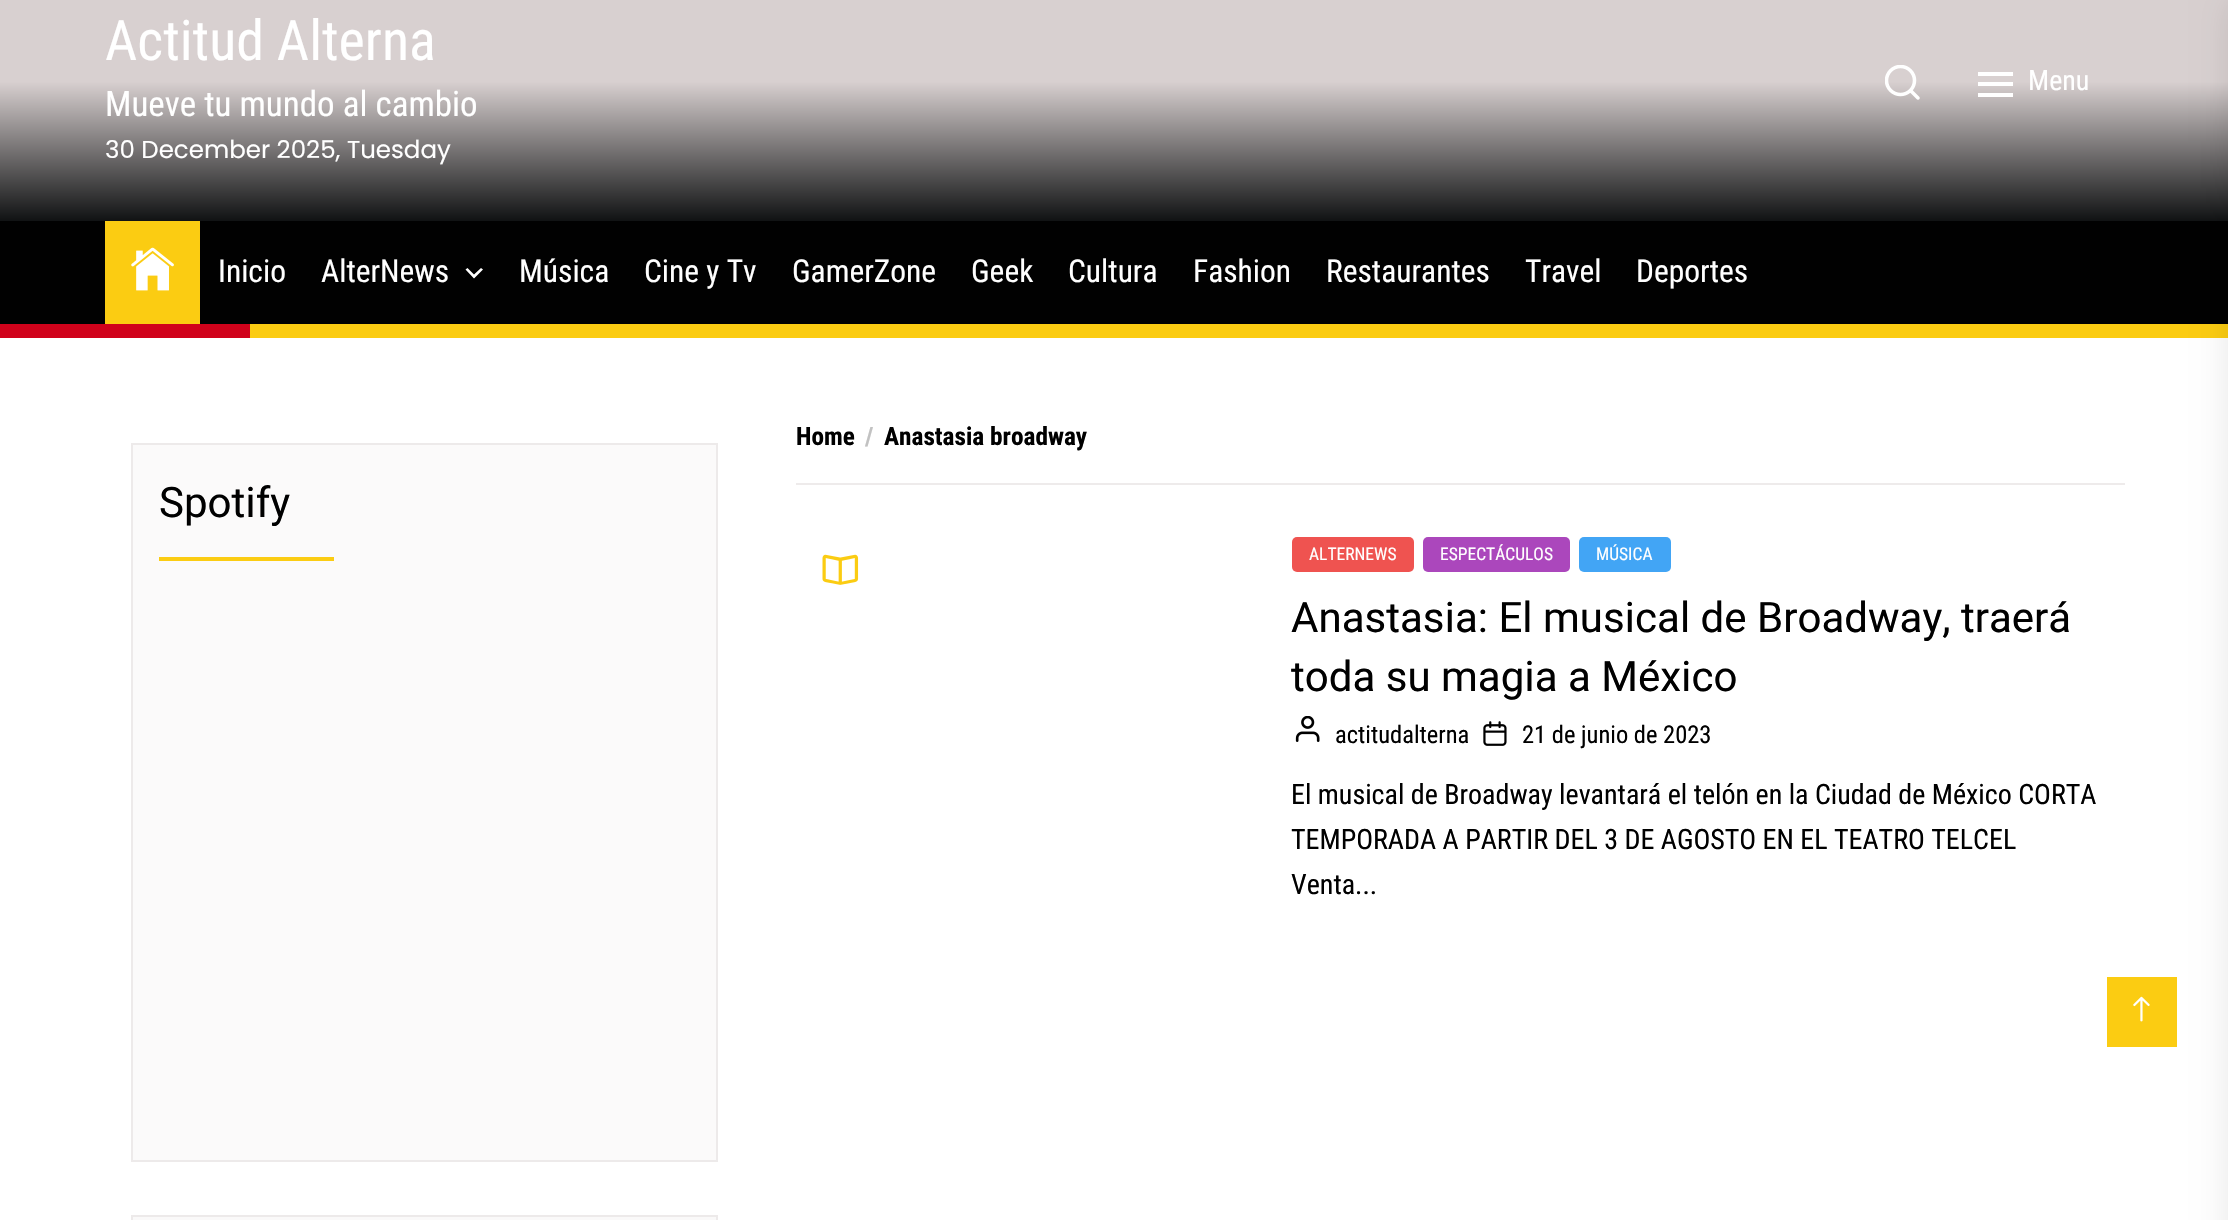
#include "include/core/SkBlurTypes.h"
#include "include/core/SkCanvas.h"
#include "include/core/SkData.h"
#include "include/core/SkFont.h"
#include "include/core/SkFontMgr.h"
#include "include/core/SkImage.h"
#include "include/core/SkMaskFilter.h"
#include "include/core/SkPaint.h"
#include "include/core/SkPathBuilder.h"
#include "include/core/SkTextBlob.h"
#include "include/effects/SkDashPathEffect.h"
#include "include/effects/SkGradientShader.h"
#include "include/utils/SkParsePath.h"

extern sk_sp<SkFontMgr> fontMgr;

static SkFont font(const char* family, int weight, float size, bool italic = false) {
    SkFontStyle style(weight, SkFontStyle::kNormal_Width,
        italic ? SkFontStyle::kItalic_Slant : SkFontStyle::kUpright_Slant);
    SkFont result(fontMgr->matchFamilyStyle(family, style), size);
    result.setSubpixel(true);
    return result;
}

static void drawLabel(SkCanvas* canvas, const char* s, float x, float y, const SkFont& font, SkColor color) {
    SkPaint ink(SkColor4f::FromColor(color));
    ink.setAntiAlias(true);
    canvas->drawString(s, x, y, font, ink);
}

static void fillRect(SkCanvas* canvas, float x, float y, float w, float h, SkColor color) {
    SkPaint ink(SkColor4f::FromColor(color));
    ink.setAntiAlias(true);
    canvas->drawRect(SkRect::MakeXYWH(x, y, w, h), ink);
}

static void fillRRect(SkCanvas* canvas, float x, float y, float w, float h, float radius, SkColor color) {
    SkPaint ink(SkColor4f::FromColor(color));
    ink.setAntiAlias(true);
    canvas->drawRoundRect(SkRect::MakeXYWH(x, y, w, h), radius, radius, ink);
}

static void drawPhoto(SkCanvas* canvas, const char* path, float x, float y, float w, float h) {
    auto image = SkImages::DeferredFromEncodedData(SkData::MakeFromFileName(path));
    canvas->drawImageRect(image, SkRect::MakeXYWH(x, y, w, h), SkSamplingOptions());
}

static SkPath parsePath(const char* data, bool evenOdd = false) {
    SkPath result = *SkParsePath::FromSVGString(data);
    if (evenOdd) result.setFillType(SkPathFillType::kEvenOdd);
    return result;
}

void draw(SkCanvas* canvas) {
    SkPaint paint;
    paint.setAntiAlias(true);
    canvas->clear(0xFFFFFFFF);
    {
        const SkColor colors[] = {0xFF101213, 0xFFD8D0D0};
        const float stops[] = {0, 0.5f};
        const SkPoint ends[] = {{1115, 221}, {1115, -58}};
        paint.setShader(SkGradientShader::MakeLinear(ends, colors, stops, 2, SkTileMode::kClamp));
        paint.setAlpha(255);
    }
    canvas->drawRect(SkRect::MakeXYWH(0, 0, 2228, 221), paint);
    SkFont font1 = font("Roboto Condensed", 400, 56);
    drawLabel(canvas, "Actitud Alterna", 105, 60, font1, 0xFFFFFFFF);
    SkFont font2 = font("Roboto Condensed", 400, 35);
    drawLabel(canvas, "Mueve tu mundo al cambio", 105, 116, font2, 0xFFFFFFFF);
    SkFont font3 = font("Poppins", 400, 24.5f);
    drawLabel(canvas, "30 December 2025, Tuesday", 105, 158, font3, 0xFFFFFFFF);
    drawPhoto(canvas, "assets/img1.png", 1885, 65, 35, 35);
    fillRect(canvas, 1978, 72, 35, 4, 0xFFFFFFFF);
    fillRect(canvas, 1978, 82, 35, 4, 0xFFFFFFFF);
    fillRect(canvas, 1978, 93, 35, 4, 0xFFFFFFFF);
    SkFont font4 = font("Roboto Condensed", 400, 28);
    drawLabel(canvas, "Menu", 2028, 90, font4, 0xFFFFFFFF);
    fillRect(canvas, 0, 221, 2228, 103, 0xFF010101);
    fillRect(canvas, 105, 221, 95, 103, 0xFFFBCC12);
    drawPhoto(canvas, "assets/img2.png", 131, 247, 43, 44);
    SkFont font5 = font("Roboto Condensed", 400, 31.5f);
    drawLabel(canvas, "Inicio", 218, 282, font5, 0xFFFFFFFF);
    drawLabel(canvas, "AlterNews", 321, 282, font5, 0xFFFFFFFF);
    paint.setShader(nullptr);
    paint.setColor(0xFFFFFFFF);
    canvas->drawPath(parsePath("M474 274.5L481 268L483 269.5L474 278.5L465.5 269.5L467.5 268Z", true), paint);
    drawLabel(canvas, "Música", 519, 282, font5, 0xFFFFFFFF);
    drawLabel(canvas, "Cine y Tv", 644, 282, font5, 0xFFFFFFFF);
    drawLabel(canvas, "GamerZone", 792, 282, font5, 0xFFFFFFFF);
    drawLabel(canvas, "Geek", 971, 282, font5, 0xFFFFFFFF);
    drawLabel(canvas, "Cultura", 1068, 282, font5, 0xFFFFFFFF);
    drawLabel(canvas, "Fashion", 1193, 282, font5, 0xFFFFFFFF);
    drawLabel(canvas, "Restaurantes", 1326, 282, font5, 0xFFFFFFFF);
    drawLabel(canvas, "Travel", 1525, 282, font5, 0xFFFFFFFF);
    drawLabel(canvas, "Deportes", 1636, 282, font5, 0xFFFFFFFF);
    fillRect(canvas, 0, 324, 250, 14, 0xFFD0021B);
    fillRect(canvas, 250, 324, 1978, 14, 0xFFFBCC12);
    paint.setColor(0xFFFBFAFA);
    canvas->drawRect(SkRect::MakeXYWH(132, 444, 585, 717), paint);
    paint.setStroke(true);
    paint.setStrokeWidth(2);
    paint.setColor(0xFFEDEAEA);
    canvas->drawRect(SkRect::MakeXYWH(132, 444, 585, 717), paint);
    SkFont font6 = font("Heebo", 400, 42);
    drawLabel(canvas, "Spotify", 159, 517, font6, 0xFF000000);
    fillRect(canvas, 159, 557, 175, 4, 0xFFFBCC12);
    paint.setStroke(false);
    paint.setColor(0xFFFAF9F9);
    canvas->drawRect(SkRect::MakeXYWH(132, 1216, 585, 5), paint);
    paint.setStroke(true);
    paint.setColor(0xFFEDEAEA);
    canvas->drawRect(SkRect::MakeXYWH(132, 1216, 585, 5), paint);
    fillRect(canvas, 796, 483, 1329, 2, 0xFFEEEBEB);
    SkFont font7 = font("Roboto Condensed", 700, 25.25f);
    drawLabel(canvas, "Home", 796, 445, font7, 0xFF000000);
    drawLabel(canvas, "/", 865, 445, font7, 0xFFC2C2C2);
    drawLabel(canvas, "Anastasia broadway", 884, 445, font7, 0xFF000000);
    drawPhoto(canvas, "assets/img3.png", 822, 554, 37, 31);
    fillRRect(canvas, 1292, 537, 122, 35, 5, 0xFFEF5350);
    SkFont font8 = font("Roboto Condensed", 400, 17.5f);
    drawLabel(canvas, "ALTERNEWS", 1309, 560, font8, 0xFFFFFFFF);
    fillRRect(canvas, 1423, 537, 147, 35, 5, 0xFFAB47BC);
    drawLabel(canvas, "ESPECTÁCULOS", 1440, 560, font8, 0xFFFFFFFF);
    fillRRect(canvas, 1579, 537, 92, 35, 5, 0xFF42A5F5);
    drawLabel(canvas, "MÚSICA", 1596, 560, font8, 0xFFFFFFFF);
    drawLabel(canvas, "Anastasia: El musical de Broadway, traerá", 1291, 632, font6, 0xFF000000);
    drawLabel(canvas, "toda su magia a México", 1291, 691, font6, 0xFF000000);
    drawPhoto(canvas, "assets/img4.png", 1295, 716, 25, 26);
    SkFont font9 = font("Roboto Condensed", 400, 24.5f);
    drawLabel(canvas, "actitudalterna", 1335, 743, font9, 0xFF000000);
    drawPhoto(canvas, "assets/img5.png", 1483, 721, 24, 25);
    drawLabel(canvas, "21 de junio de 2023", 1522, 743, font9, 0xFF000000);
    drawLabel(canvas, "El musical de Broadway levantará el telón en la Ciudad de México CORTA", 1291, 804, font4, 0xFF000000);
    drawLabel(canvas, "TEMPORADA A PARTIR DEL 3 DE AGOSTO EN EL TEATRO TELCEL", 1291, 849, font4, 0xFF000000);
    drawLabel(canvas, "Venta...", 1291, 894, font4, 0xFF000000);
    fillRect(canvas, 2107, 977, 70, 70, 0xFFFBCC12);
    paint.setStroke(false);
    paint.setColor(0x1A000000);
    paint.setMaskFilter(SkMaskFilter::MakeBlur(kNormal_SkBlurStyle, 17.5f));
    canvas->drawRect(SkRect::MakeXYWH(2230, 0, 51, 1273), paint);
    paint.setMaskFilter(nullptr);
    drawPhoto(canvas, "assets/img6.png", 2133, 996, 17, 26);
}
